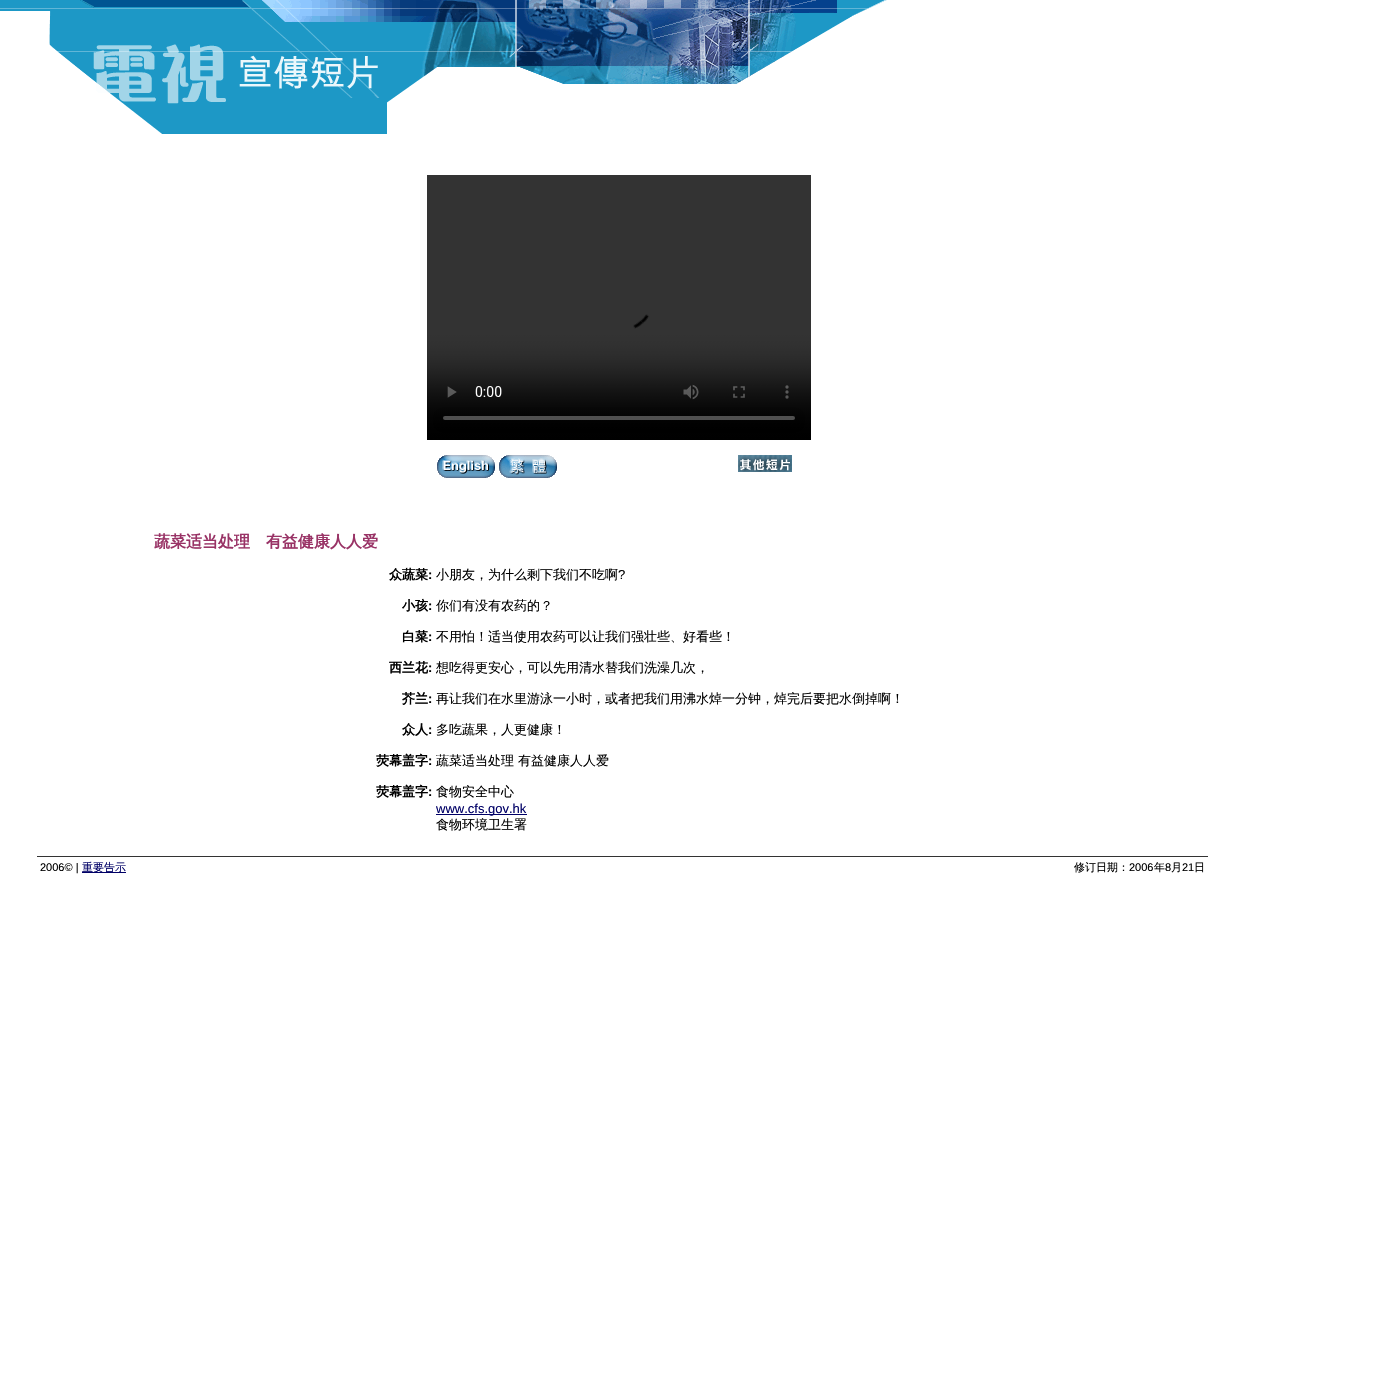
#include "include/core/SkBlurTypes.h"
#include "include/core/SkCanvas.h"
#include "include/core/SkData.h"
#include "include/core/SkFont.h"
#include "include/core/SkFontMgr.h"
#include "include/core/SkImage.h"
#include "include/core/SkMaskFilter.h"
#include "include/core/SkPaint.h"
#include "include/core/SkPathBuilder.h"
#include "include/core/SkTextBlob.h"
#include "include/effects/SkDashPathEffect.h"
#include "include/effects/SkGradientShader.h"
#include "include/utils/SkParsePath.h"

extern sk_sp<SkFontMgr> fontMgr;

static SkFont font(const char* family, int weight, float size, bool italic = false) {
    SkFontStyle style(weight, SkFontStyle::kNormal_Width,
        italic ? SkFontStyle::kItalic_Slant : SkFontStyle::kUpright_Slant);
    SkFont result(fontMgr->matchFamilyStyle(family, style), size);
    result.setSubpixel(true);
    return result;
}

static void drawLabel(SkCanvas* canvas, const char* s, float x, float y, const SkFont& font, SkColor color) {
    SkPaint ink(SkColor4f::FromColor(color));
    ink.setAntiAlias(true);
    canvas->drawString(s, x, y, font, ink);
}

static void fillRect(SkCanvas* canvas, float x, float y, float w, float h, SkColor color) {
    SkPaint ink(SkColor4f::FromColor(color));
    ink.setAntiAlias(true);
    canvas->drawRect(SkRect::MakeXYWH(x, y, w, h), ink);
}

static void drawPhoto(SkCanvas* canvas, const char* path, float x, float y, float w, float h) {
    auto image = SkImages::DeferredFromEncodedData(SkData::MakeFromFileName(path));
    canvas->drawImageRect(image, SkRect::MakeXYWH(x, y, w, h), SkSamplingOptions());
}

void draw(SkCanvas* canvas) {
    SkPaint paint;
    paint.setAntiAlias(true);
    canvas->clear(0xFFFFFFFF);
    drawPhoto(canvas, "assets/img1.png", 0, 0, 887, 134);
    drawPhoto(canvas, "assets/img2.png", 427, 175, 384, 265);
    drawPhoto(canvas, "assets/img3.png", 437, 455, 58, 23);
    drawPhoto(canvas, "assets/img4.png", 499, 455, 58, 23);
    drawPhoto(canvas, "assets/img5.png", 738, 455, 54, 17);
    SkFont font1 = font("WenQuanYi Zen Hei", 700, 16);
    drawLabel(canvas, "蔬菜适当处理　有益健康人人爱", 154, 547, font1, 0xFF993366);
    SkFont font2 = font("WenQuanYi Zen Hei", 700, 13);
    drawLabel(canvas, "众蔬菜", 389, 579, font2, 0xFF000000);
    SkFont font3 = font("Liberation Sans", 700, 13);
    drawLabel(canvas, ":", 428, 579, font3, 0xFF000000);
    SkFont font4 = font("WenQuanYi Zen Hei", 500, 13);
    drawLabel(canvas, "小朋友，为什么剩下我们不吃啊", 436, 579, font4, 0xFF000000);
    SkFont font5 = font("Liberation Sans", 400, 13);
    drawLabel(canvas, "?", 618, 579, font5, 0xFF000000);
    drawLabel(canvas, "小孩", 402, 610, font2, 0xFF000000);
    drawLabel(canvas, ":", 428, 610, font3, 0xFF000000);
    drawLabel(canvas, "你们有没有农药的？", 436, 610, font4, 0xFF000000);
    drawLabel(canvas, "白菜", 402, 641, font2, 0xFF000000);
    drawLabel(canvas, ":", 428, 641, font3, 0xFF000000);
    drawLabel(canvas, "不用怕！适当使用农药可以让我们强壮些、好看些！", 436, 641, font4, 0xFF000000);
    drawLabel(canvas, "西兰花", 389, 672, font2, 0xFF000000);
    drawLabel(canvas, ":", 428, 672, font3, 0xFF000000);
    drawLabel(canvas, "想吃得更安心，可以先用清水替我们洗澡几次，", 436, 672, font4, 0xFF000000);
    drawLabel(canvas, "芥兰", 402, 703, font2, 0xFF000000);
    drawLabel(canvas, ":", 428, 703, font3, 0xFF000000);
    drawLabel(canvas, "再让我们在水里游泳一小时，或者把我们用沸水焯一分钟，焯完后要把水倒掉啊！", 436, 703, font4, 0xFF000000);
    drawLabel(canvas, "众人", 402, 734, font2, 0xFF000000);
    drawLabel(canvas, ":", 428, 734, font3, 0xFF000000);
    drawLabel(canvas, "多吃蔬果，人更健康！", 436, 734, font4, 0xFF000000);
    drawLabel(canvas, "荧幕盖字", 376, 765, font2, 0xFF000000);
    drawLabel(canvas, ":", 428, 765, font3, 0xFF000000);
    drawLabel(canvas, "蔬菜适当处理 有益健康人人爱", 436, 765, font4, 0xFF000000);
    drawLabel(canvas, "荧幕盖字", 376, 796, font2, 0xFF000000);
    drawLabel(canvas, ":", 428, 796, font3, 0xFF000000);
    drawLabel(canvas, "食物安全中心", 436, 796, font4, 0xFF000000);
    fillRect(canvas, 436, 814, 91, 1, 0xFF000066);
    drawLabel(canvas, "www.cfs.gov.hk", 436, 813, font5, 0xFF000066);
    drawLabel(canvas, "食物环境卫生署", 436, 829, font4, 0xFF000000);
    fillRect(canvas, 37, 856, 1171, 1, 0xFF333333);
    SkFont font6 = font("Liberation Sans", 400, 11);
    drawLabel(canvas, "2006© |", 40, 871, font6, 0xFF000000);
    fillRect(canvas, 82, 872, 44, 1, 0xFF000066);
    SkFont font7 = font("WenQuanYi Zen Hei", 500, 11);
    drawLabel(canvas, "重要告示", 82, 871, font7, 0xFF000066);
    drawLabel(canvas, "修订日期：", 1074, 871, font7, 0xFF000000);
    drawLabel(canvas, "2006", 1129, 871, font6, 0xFF000000);
    drawLabel(canvas, "年", 1154, 871, font7, 0xFF000000);
    drawLabel(canvas, "8", 1165, 871, font6, 0xFF000000);
    drawLabel(canvas, "月", 1171, 871, font7, 0xFF000000);
    drawLabel(canvas, "21", 1182, 871, font6, 0xFF000000);
    drawLabel(canvas, "日", 1194, 871, font7, 0xFF000000);
}
